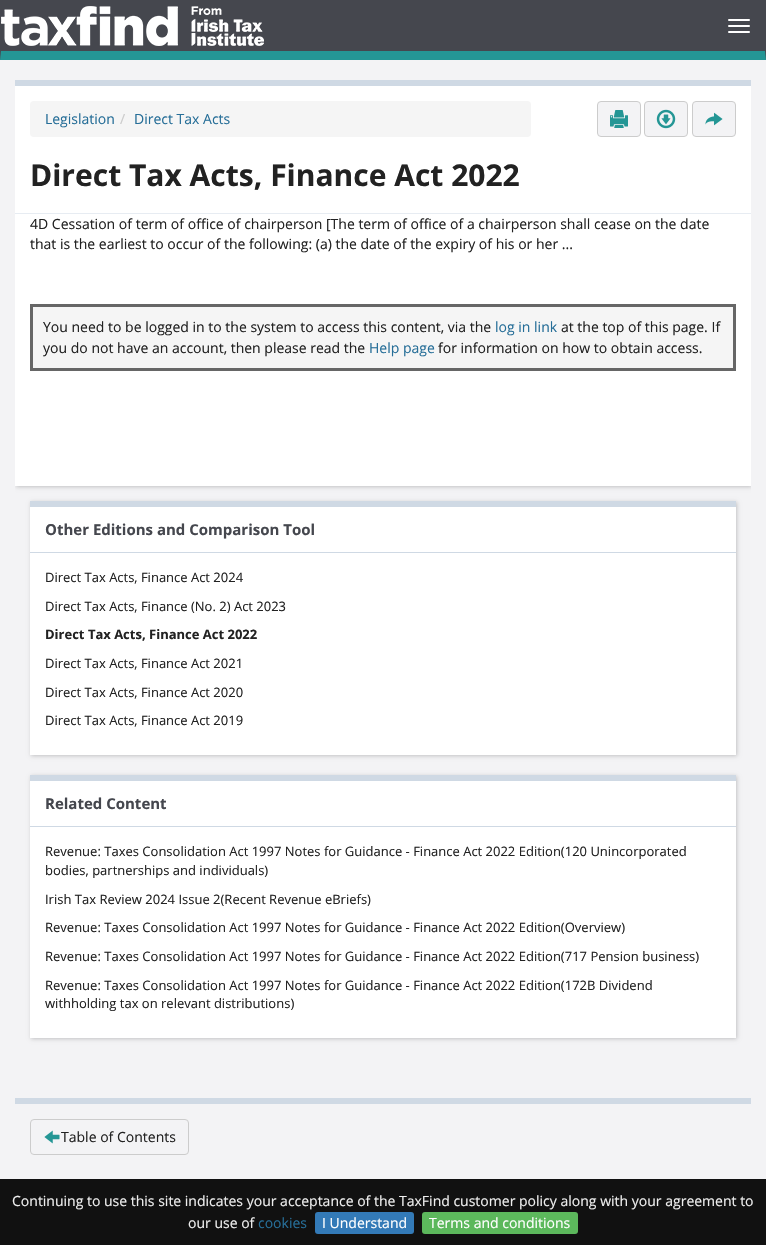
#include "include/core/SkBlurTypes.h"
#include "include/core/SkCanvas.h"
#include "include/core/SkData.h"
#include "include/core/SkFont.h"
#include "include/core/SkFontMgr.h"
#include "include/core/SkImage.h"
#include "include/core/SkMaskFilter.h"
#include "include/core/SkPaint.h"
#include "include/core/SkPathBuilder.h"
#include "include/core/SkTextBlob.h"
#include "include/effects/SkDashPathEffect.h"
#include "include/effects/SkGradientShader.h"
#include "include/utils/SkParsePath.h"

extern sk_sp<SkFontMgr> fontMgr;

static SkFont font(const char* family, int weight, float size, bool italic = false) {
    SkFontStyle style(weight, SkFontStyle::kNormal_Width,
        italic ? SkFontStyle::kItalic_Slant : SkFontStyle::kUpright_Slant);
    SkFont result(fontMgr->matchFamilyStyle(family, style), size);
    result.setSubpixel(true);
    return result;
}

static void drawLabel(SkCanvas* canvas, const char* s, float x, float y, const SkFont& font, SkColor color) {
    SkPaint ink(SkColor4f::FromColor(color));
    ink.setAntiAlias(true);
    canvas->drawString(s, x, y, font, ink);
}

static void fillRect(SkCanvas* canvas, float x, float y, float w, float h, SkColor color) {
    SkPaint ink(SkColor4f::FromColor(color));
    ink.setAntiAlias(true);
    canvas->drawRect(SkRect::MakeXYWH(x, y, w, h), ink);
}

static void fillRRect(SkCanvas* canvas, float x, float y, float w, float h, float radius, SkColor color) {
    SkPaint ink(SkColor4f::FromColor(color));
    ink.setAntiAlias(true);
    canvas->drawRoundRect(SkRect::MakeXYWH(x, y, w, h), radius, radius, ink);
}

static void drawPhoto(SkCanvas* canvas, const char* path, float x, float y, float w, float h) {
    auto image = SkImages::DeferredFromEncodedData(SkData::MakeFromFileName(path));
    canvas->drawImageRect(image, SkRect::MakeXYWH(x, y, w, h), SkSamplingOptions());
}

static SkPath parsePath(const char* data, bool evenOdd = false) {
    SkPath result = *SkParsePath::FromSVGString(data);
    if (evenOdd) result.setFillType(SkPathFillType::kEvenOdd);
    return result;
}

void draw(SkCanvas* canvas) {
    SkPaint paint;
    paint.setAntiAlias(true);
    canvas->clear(0xFFF3F3F5);
    fillRect(canvas, 0, 0, 766, 60, 0xFF45474E);
    paint.setColor(0xFF249695);
    canvas->drawPath(parsePath("M766 60H0L1 51H765Z"), paint);
    drawPhoto(canvas, "assets/img1.png", 1, 6, 263, 40);
    fillRRect(canvas, 728, 19, 22, 2, 1, 0xFFFFFFFF);
    fillRRect(canvas, 728, 25, 22, 2, 1, 0xFFFFFFFF);
    fillRRect(canvas, 728, 31, 22, 2, 1, 0xFFFFFFFF);
    canvas->save();
    canvas->clipRect(SkRect::MakeXYWH(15, 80, 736, 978));
    paint.setColor(0x33000000);
    paint.setMaskFilter(SkMaskFilter::MakeBlur(kNormal_SkBlurStyle, 2));
    canvas->drawRect(SkRect::MakeXYWH(16, 81, 736, 406), paint);
    paint.setMaskFilter(nullptr);
    canvas->restore();
    fillRect(canvas, 15, 86, 736, 400, 0xFFFFFFFF);
    fillRect(canvas, 15, 80, 736, 6, 0xFFCFD9E4);
    fillRect(canvas, 15, 213, 736, 1, 0xFFE7ECF2);
    fillRRect(canvas, 30, 101, 501, 36, 4, 0xFFF5F5F5);
    SkFont font1 = font("Open Sans", 400, 14);
    drawLabel(canvas, "Legislation", 45, 124, font1, 0xFF266E98);
    drawLabel(canvas, "/", 120, 124, font1, 0xFFCCCCCC);
    drawLabel(canvas, "Direct Tax Acts", 134, 124, font1, 0xFF266E98);
    paint.setColor(0xFFF3F3F5);
    canvas->drawRoundRect(SkRect::MakeXYWH(597.5f, 101.5f, 43, 35), 3.5f, 3.5f, paint);
    paint.setStroke(true);
    paint.setStrokeWidth(1);
    paint.setColor(0xFFCCCCCC);
    canvas->drawRoundRect(SkRect::MakeXYWH(597.5f, 101.5f, 43, 35), 3.5f, 3.5f, paint);
    drawPhoto(canvas, "assets/img2.png", 610, 110, 18, 18);
    paint.setStroke(false);
    paint.setColor(0xFFF3F3F5);
    canvas->drawRoundRect(SkRect::MakeXYWH(644.5f, 101.5f, 43, 35), 3.5f, 3.5f, paint);
    paint.setStroke(true);
    paint.setColor(0xFFCCCCCC);
    canvas->drawRoundRect(SkRect::MakeXYWH(644.5f, 101.5f, 43, 35), 3.5f, 3.5f, paint);
    drawPhoto(canvas, "assets/img3.png", 656, 109, 20, 20);
    paint.setStroke(false);
    paint.setColor(0xFFF3F3F5);
    canvas->drawRoundRect(SkRect::MakeXYWH(692.5f, 101.5f, 43, 35), 3.5f, 3.5f, paint);
    paint.setStroke(true);
    paint.setColor(0xFFCCCCCC);
    canvas->drawRoundRect(SkRect::MakeXYWH(692.5f, 101.5f, 43, 35), 3.5f, 3.5f, paint);
    drawPhoto(canvas, "assets/img4.png", 705, 112, 18, 14);
    SkFont font2 = font("Open Sans", 700, 30);
    drawLabel(canvas, "Direct Tax Acts, Finance Act 2022", 30, 186, font2, 0xFF222222);
    drawLabel(canvas, "4D Cessation of term of office of chairperson [The term of office of a chairperson shall cease on the date", 30, 229, font1, 0xFF222222);
    drawLabel(canvas, "that is the earliest to occur of the following: (a) the date of the expiry of his or her ...", 30, 249, font1, 0xFF222222);
    paint.setStroke(false);
    paint.setColor(0xFFF5F5F5);
    canvas->drawRect(SkRect::MakeXYWH(31.5f, 305.5f, 703, 64), paint);
    paint.setStroke(true);
    paint.setStrokeWidth(3);
    paint.setColor(0xFF666666);
    canvas->drawRect(SkRect::MakeXYWH(31.5f, 305.5f, 703, 64), paint);
    drawLabel(canvas, "You need to be logged in to the system to access this content, via the", 43, 332, font1, 0xFF222222);
    drawLabel(canvas, "log in link", 495, 332, font1, 0xFF266E98);
    drawLabel(canvas, "at the top of this page. If", 561, 332, font1, 0xFF222222);
    drawLabel(canvas, "you do not have an account, then please read the", 43, 353, font1, 0xFF222222);
    drawLabel(canvas, "Help page", 369, 353, font1, 0xFF266E98);
    drawLabel(canvas, "for information on how to obtain access.", 438, 353, font1, 0xFF222222);
    paint.setStroke(false);
    paint.setColor(0x33000000);
    paint.setMaskFilter(SkMaskFilter::MakeBlur(kNormal_SkBlurStyle, 2));
    canvas->drawRect(SkRect::MakeXYWH(31, 502, 706, 254), paint);
    paint.setMaskFilter(nullptr);
    fillRect(canvas, 30, 507, 706, 248, 0xFFFFFFFF);
    fillRect(canvas, 30, 501, 706, 6, 0xFFCFD9E4);
    fillRect(canvas, 30, 552, 706, 1, 0xFFCFD9E4);
    SkFont font3 = font("Open Sans", 700, 15);
    drawLabel(canvas, "Other Editions and Comparison Tool", 45, 535, font3, 0xFF45474E);
    SkFont font4 = font("Open Sans", 400, 13);
    drawLabel(canvas, "Direct Tax Acts, Finance Act 2024", 45, 582, font4, 0xFF222222);
    drawLabel(canvas, "Direct Tax Acts, Finance (No. 2) Act 2023", 45, 611, font4, 0xFF222222);
    SkFont font5 = font("Open Sans", 700, 13);
    drawLabel(canvas, "Direct Tax Acts, Finance Act 2022", 45, 639, font5, 0xFF222222);
    drawLabel(canvas, "Direct Tax Acts, Finance Act 2021", 45, 668, font4, 0xFF222222);
    drawLabel(canvas, "Direct Tax Acts, Finance Act 2020", 45, 697, font4, 0xFF222222);
    drawLabel(canvas, "Direct Tax Acts, Finance Act 2019", 45, 725, font4, 0xFF222222);
    paint.setMaskFilter(SkMaskFilter::MakeBlur(kNormal_SkBlurStyle, 2));
    canvas->drawRect(SkRect::MakeXYWH(31, 776, 706, 263), paint);
    paint.setMaskFilter(nullptr);
    fillRect(canvas, 30, 781, 706, 257, 0xFFFFFFFF);
    fillRect(canvas, 30, 775, 706, 6, 0xFFCFD9E4);
    fillRect(canvas, 30, 826, 706, 1, 0xFFCFD9E4);
    drawLabel(canvas, "Related Content", 45, 809, font3, 0xFF45474E);
    drawLabel(canvas, "Revenue: Taxes Consolidation Act 1997 Notes for Guidance - Finance Act 2022 Edition(120 Unincorporated", 45, 856, font4, 0xFF222222);
    drawLabel(canvas, "bodies, partnerships and individuals)", 45, 875, font4, 0xFF222222);
    drawLabel(canvas, "Irish Tax Review 2024 Issue 2(Recent Revenue eBriefs)", 45, 904, font4, 0xFF222222);
    drawLabel(canvas, "Revenue: Taxes Consolidation Act 1997 Notes for Guidance - Finance Act 2022 Edition(Overview)", 45, 932, font4, 0xFF222222);
    drawLabel(canvas, "Revenue: Taxes Consolidation Act 1997 Notes for Guidance - Finance Act 2022 Edition(717 Pension business)", 45, 961, font4, 0xFF222222);
    drawLabel(canvas, "Revenue: Taxes Consolidation Act 1997 Notes for Guidance - Finance Act 2022 Edition(172B Dividend", 45, 990, font4, 0xFF222222);
    drawLabel(canvas, "withholding tax on relevant distributions)", 45, 1008, font4, 0xFF222222);
    fillRect(canvas, 15, 1098, 736, 6, 0xFFCFD9E4);
    paint.setStroke(true);
    paint.setStrokeWidth(1);
    paint.setColor(0xFFCCCCCC);
    canvas->drawRoundRect(SkRect::MakeXYWH(30.5f, 1119.5f, 158, 35), 3.5f, 3.5f, paint);
    drawPhoto(canvas, "assets/img5.png", 44, 1130, 16, 14);
    drawLabel(canvas, "Table of Contents", 61, 1142, font1, 0xFF222222);
    fillRect(canvas, 0, 1179, 766, 66, 0xFF111111);
    drawLabel(canvas, "Continuing to use this site indicates your acceptance of the TaxFind customer policy along with your agreement to", 12, 1206, font1, 0xFFEEEEEE);
    drawLabel(canvas, "our use of", 188, 1228, font1, 0xFFEEEEEE);
    drawLabel(canvas, "cookies", 258, 1228, font1, 0xFF266E98);
    fillRRect(canvas, 315, 1212, 99, 22, 3, 0xFF337AB7);
    drawLabel(canvas, "I Understand", 322, 1228, font1, 0xFFFFFFFF);
    fillRRect(canvas, 422, 1212, 156, 22, 3, 0xFF5CB85C);
    drawLabel(canvas, "Terms and conditions", 429, 1228, font1, 0xFFFFFFFF);
}
